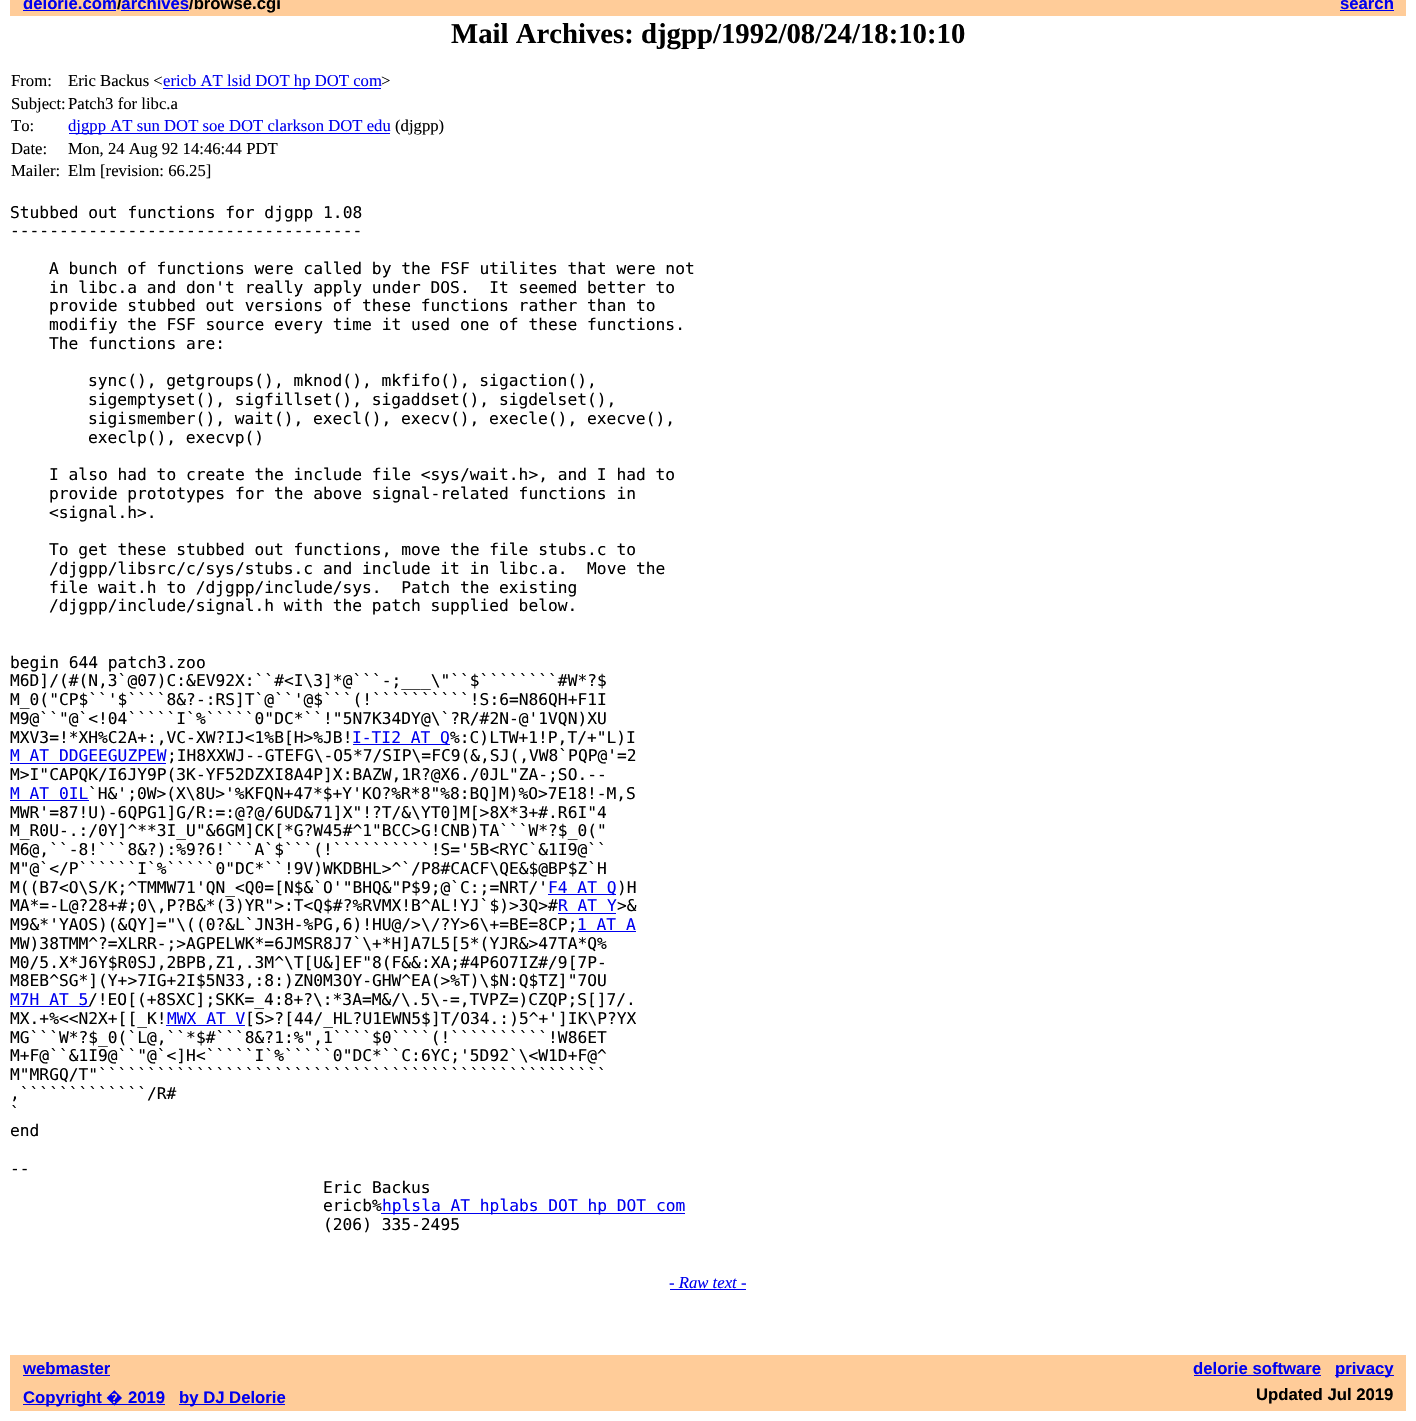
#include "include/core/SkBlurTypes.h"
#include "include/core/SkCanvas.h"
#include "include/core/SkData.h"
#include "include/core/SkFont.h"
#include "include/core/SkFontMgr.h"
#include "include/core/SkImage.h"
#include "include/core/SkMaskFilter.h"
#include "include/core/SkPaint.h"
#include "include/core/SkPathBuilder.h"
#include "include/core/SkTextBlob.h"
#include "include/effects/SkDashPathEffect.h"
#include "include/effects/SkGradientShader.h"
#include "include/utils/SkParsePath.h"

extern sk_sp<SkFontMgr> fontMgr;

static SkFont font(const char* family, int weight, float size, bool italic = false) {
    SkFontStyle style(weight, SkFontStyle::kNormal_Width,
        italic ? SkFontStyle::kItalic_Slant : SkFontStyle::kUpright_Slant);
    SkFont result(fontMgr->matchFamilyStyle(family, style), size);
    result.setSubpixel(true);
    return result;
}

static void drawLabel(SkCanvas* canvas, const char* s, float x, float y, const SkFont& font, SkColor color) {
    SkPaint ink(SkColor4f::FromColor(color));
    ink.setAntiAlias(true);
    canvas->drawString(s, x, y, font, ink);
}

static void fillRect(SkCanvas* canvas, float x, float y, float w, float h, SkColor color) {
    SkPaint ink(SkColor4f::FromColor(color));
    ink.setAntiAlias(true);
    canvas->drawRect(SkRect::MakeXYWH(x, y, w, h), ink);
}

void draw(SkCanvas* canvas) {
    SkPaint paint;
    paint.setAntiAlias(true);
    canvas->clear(0xFFFFFFFF);
    fillRect(canvas, 10, 0, 1396, 16, 0xFFFFCC99);
    SkFont font1 = font("Liberation Sans", 700, 16.7f);
    drawLabel(canvas, "delorie.com archives", 23, 9, font1, 0xFF0000EE);
    fillRect(canvas, 23, 10, 93, 1, 0xFF0000EE);
    drawLabel(canvas, "/", 117, 9, font1, 0xFF000000);
    fillRect(canvas, 121, 10, 68, 1, 0xFF0000EE);
    drawLabel(canvas, "/browse.cgi", 189, 9, font1, 0xFF000000);
    drawLabel(canvas, "search", 1340, 9, font1, 0xFF0000EE);
    fillRect(canvas, 1340, 10, 54, 1, 0xFF0000EE);
    SkFont font2 = font("Liberation Serif", 700, 28.75f);
    drawLabel(canvas, "Mail Archives: djgpp/1992/08/24/18:10:10", 451, 43, font2, 0xFF000000);
    SkFont font3 = font("Liberation Serif", 400, 16.7f);
    drawLabel(canvas, "From:", 11, 86, font3, 0xFF000000);
    drawLabel(canvas, "Eric Backus <", 68, 86, font3, 0xFF000000);
    fillRect(canvas, 163, 88, 218, 1, 0xFF0000EE);
    drawLabel(canvas, "ericb AT lsid DOT hp DOT com", 163, 86, font3, 0xFF0000EE);
    drawLabel(canvas, ">", 381, 86, font3, 0xFF000000);
    drawLabel(canvas, "Subject:", 11, 109, font3, 0xFF000000);
    drawLabel(canvas, "Patch3 for libc.a", 68, 109, font3, 0xFF000000);
    drawLabel(canvas, "To:", 11, 131, font3, 0xFF000000);
    fillRect(canvas, 69, 133, 321, 1, 0xFF0000EE);
    drawLabel(canvas, "djgpp AT sun DOT soe DOT clarkson DOT edu", 68, 131, font3, 0xFF0000EE);
    drawLabel(canvas, "(djgpp)", 395, 131, font3, 0xFF000000);
    drawLabel(canvas, "Date:", 11, 154, font3, 0xFF000000);
    drawLabel(canvas, "Mon, 24 Aug 92 14:46:44 PDT", 68, 154, font3, 0xFF000000);
    drawLabel(canvas, "Mailer:", 11, 176, font3, 0xFF000000);
    drawLabel(canvas, "Elm [revision: 66.25]", 68, 176, font3, 0xFF000000);
    SkFont font4 = font("DejaVu Sans Mono", 400, 16.25f);
    drawLabel(canvas, "Stubbed out functions for djgpp 1.08", 10, 218, font4, 0xFF000000);
    drawLabel(canvas, "------------------------------------", 10, 236, font4, 0xFF000000);
    drawLabel(canvas, "A bunch of functions were called by the FSF utilites that were not", 49, 274, font4, 0xFF000000);
    drawLabel(canvas, "in libc.a and don't really apply under DOS.  It seemed better to", 49, 293, font4, 0xFF000000);
    drawLabel(canvas, "provide stubbed out versions of these functions rather than to", 49, 311, font4, 0xFF000000);
    drawLabel(canvas, "modifiy the FSF source every time it used one of these functions.", 49, 330, font4, 0xFF000000);
    drawLabel(canvas, "The functions are:", 49, 349, font4, 0xFF000000);
    drawLabel(canvas, "sync(), getgroups(), mknod(), mkfifo(), sigaction(),", 88, 386, font4, 0xFF000000);
    drawLabel(canvas, "sigemptyset(), sigfillset(), sigaddset(), sigdelset(),", 88, 405, font4, 0xFF000000);
    drawLabel(canvas, "sigismember(), wait(), execl(), execv(), execle(), execve(),", 88, 424, font4, 0xFF000000);
    drawLabel(canvas, "execlp(), execvp()", 88, 443, font4, 0xFF000000);
    drawLabel(canvas, "I also had to create the include file <sys/wait.h>, and I had to", 49, 480, font4, 0xFF000000);
    drawLabel(canvas, "provide prototypes for the above signal-related functions in", 49, 499, font4, 0xFF000000);
    drawLabel(canvas, "<signal.h>.", 49, 518, font4, 0xFF000000);
    drawLabel(canvas, "To get these stubbed out functions, move the file stubs.c to", 49, 555, font4, 0xFF000000);
    drawLabel(canvas, "/djgpp/libsrc/c/sys/stubs.c and include it in libc.a.  Move the", 49, 574, font4, 0xFF000000);
    drawLabel(canvas, "file wait.h to /djgpp/include/sys.  Patch the existing", 49, 593, font4, 0xFF000000);
    drawLabel(canvas, "/djgpp/include/signal.h with the patch supplied below.", 49, 611, font4, 0xFF000000);
    drawLabel(canvas, "begin 644 patch3.zoo", 10, 668, font4, 0xFF000000);
    drawLabel(canvas, "M6D]/(#(N,3`@07)C:&EV92X:``#<I\\3]*@```-;___\\\"``$````````#W*?$", 10, 686, font4, 0xFF000000);
    drawLabel(canvas, "M_0(\"CP$``'$````8&?-:RS]T`@``'@$```(!``````````!S:6=N86QH+F1I", 10, 705, font4, 0xFF000000);
    drawLabel(canvas, "M9@``\"@`<!04`````I`%`````0\"DC*``!\"5N7K34DY@\\`?R/#2N-@'1VQN)XU", 10, 724, font4, 0xFF000000);
    drawLabel(canvas, "MXV3=!*XH%C2A+:,VC-XW?IJ<1%B[H>%JB!", 10, 743, font4, 0xFF000000);
    fillRect(canvas, 353, 744, 97, 1, 0xFF0000EE);
    drawLabel(canvas, "I-TI2 AT Q", 352, 743, font4, 0xFF0000EE);
    drawLabel(canvas, "%:C)LTW+1!P,T/+\"L)I", 450, 743, font4, 0xFF000000);
    drawLabel(canvas, "M AT DDGEEGUZPEW", 10, 761, font4, 0xFF0000EE);
    fillRect(canvas, 10, 763, 156, 1, 0xFF0000EE);
    drawLabel(canvas, ";IH8XXWJ--GTEFG\\-O5*7/SIP\\=FC9(&,SJ(,VW8`PQP@'=2", 167, 761, font4, 0xFF000000);
    drawLabel(canvas, "M>I\"CAPQK/I6JY9P(3K-YF52DZXI8A4P]X:BAZW,1R?@X6./0JL\"ZA-;SO.--", 10, 780, font4, 0xFF000000);
    drawLabel(canvas, "M AT 0IL", 10, 799, font4, 0xFF0000EE);
    fillRect(canvas, 10, 800, 79, 1, 0xFF0000EE);
    drawLabel(canvas, "`H&';0W>(X\\8U>'%KFQN+47*$+Y'KO?%R*8\"%8:BQ]M)%O>7E18!-M,S", 88, 799, font4, 0xFF000000);
    drawLabel(canvas, "MWR'=87!U)-6QPG1]G/R:=:@?@/6UD&71]X\"!?T/&\\YT0]M[>8X*3+#.R6I\"4", 10, 818, font4, 0xFF000000);
    drawLabel(canvas, "M_R0U-.:/0Y]^**3I_U\"&6GM]CK[*G?W45#^1\"BCC>G!CNB)TA```W*?$_0(\"", 10, 836, font4, 0xFF000000);
    drawLabel(canvas, "M6@,``-8!```8&?):%9?6!```A`$```(!``````````!S='5B<RYC`&1I9@``", 10, 855, font4, 0xFF000000);
    drawLabel(canvas, "M\"@`</P``````I`%`````0\"DC*``!9V)WKDBHL>^`/P8#CACF\\QE&$@BP$Z`H", 10, 874, font4, 0xFF000000);
    drawLabel(canvas, "M((B7<O\\S/K;^TMMW71'QN_<Q0=[N$&`O'\"BHQ&\"P$9;@`C:;=NRT/'", 10, 893, font4, 0xFF000000);
    fillRect(canvas, 548, 894, 68, 1, 0xFF0000EE);
    drawLabel(canvas, "F4 AT Q", 548, 893, font4, 0xFF0000EE);
    drawLabel(canvas, ")H", 617, 893, font4, 0xFF000000);
    drawLabel(canvas, "MA*=-L@?28+#;0\\,P?B&*(3)YR\">:T<Q$#?%RVMX!B^AL!YJ`$)>3Q>#", 10, 911, font4, 0xFF000000);
    drawLabel(canvas, "R AT Y", 558, 911, font4, 0xFF0000EE);
    fillRect(canvas, 558, 913, 58, 1, 0xFF0000EE);
    drawLabel(canvas, ">&", 617, 911, font4, 0xFF000000);
    drawLabel(canvas, "M9&*'YAOS)(&QY]=\"\\((0?&L`JN3H-%PG,6)!HU@/>\\/?Y>6\\+=BE=8CP;", 10, 930, font4, 0xFF000000);
    drawLabel(canvas, "1 AT A", 577, 930, font4, 0xFF0000EE);
    fillRect(canvas, 578, 931, 58, 1, 0xFF0000EE);
    drawLabel(canvas, "MW)38TMM^?=XLRR-;>AGPELWK*=6JMSR8J7`\\+*H]A7L5[5*(YJR&>47TA*Q%", 10, 949, font4, 0xFF000000);
    drawLabel(canvas, "M0/5.X*J6Y$R0SJ,2BPB,Z1,.3M^\\T[U&]EF\"8(F&&:XA;#4P6O7IZ#/9[7P-", 10, 968, font4, 0xFF000000);
    drawLabel(canvas, "M8EB^SG*](Y+>7IG+2I$5N33,:8:)ZN0M3OY-GHW^EA(>%T)\\$N:Q$TZ]\"7OU", 10, 986, font4, 0xFF000000);
    drawLabel(canvas, "M7H AT 5", 10, 1005, font4, 0xFF0000EE);
    fillRect(canvas, 10, 1006, 79, 1, 0xFF0000EE);
    drawLabel(canvas, "/!EO[(+8SXC];SKK=_4:8+?\\:*3A=M&/\\.5\\-=,TVPZ=)CZQP;S[]7/.", 88, 1005, font4, 0xFF000000);
    drawLabel(canvas, "MX.+%<<N2X+[[_K!", 10, 1024, font4, 0xFF000000);
    drawLabel(canvas, "MWX AT V", 167, 1024, font4, 0xFF0000EE);
    fillRect(canvas, 166, 1025, 79, 1, 0xFF0000EE);
    drawLabel(canvas, "[S>?[44/_HL?U1EWN5$]T/O34.:)5^+']IK\\P?YX", 245, 1024, font4, 0xFF000000);
    drawLabel(canvas, "MG```W*?$_0(`L@,``*$#```8&?1:%\",1````$0````(!``````````!W86ET", 10, 1043, font4, 0xFF000000);
    drawLabel(canvas, "M+F@``&1I9@``\"@`<]H<`````I`%`````0\"DC*``C:6YC;'5D92`\\<W1D+F@^", 10, 1061, font4, 0xFF000000);
    drawLabel(canvas, "M\"MRGQ/T\"````````````````````````````````````````````````````", 10, 1080, font4, 0xFF000000);
    drawLabel(canvas, ",`````````````/R#", 10, 1099, font4, 0xFF000000);
    drawLabel(canvas, "`", 10, 1118, font4, 0xFF000000);
    drawLabel(canvas, "end", 10, 1136, font4, 0xFF000000);
    drawLabel(canvas, "--", 10, 1174, font4, 0xFF000000);
    drawLabel(canvas, "Eric Backus", 323, 1193, font4, 0xFF000000);
    drawLabel(canvas, "ericb%", 323, 1211, font4, 0xFF000000);
    fillRect(canvas, 381, 1213, 304, 1, 0xFF0000EE);
    drawLabel(canvas, "hplsla AT hplabs DOT hp DOT com", 382, 1211, font4, 0xFF0000EE);
    drawLabel(canvas, "(206) 335-2495", 323, 1230, font4, 0xFF000000);
    SkFont font5 = font("Liberation Serif", 400, 16.7f, true);
    drawLabel(canvas, "- Raw text -", 669, 1288, font5, 0xFF0000EE);
    fillRect(canvas, 670, 1289, 76, 1, 0xFF0000EE);
    fillRect(canvas, 10, 1355, 1396, 26, 0xFFFFCC99);
    drawLabel(canvas, "webmaster", 23, 1374, font1, 0xFF0000EE);
    fillRect(canvas, 23, 1375, 87, 1, 0xFF0000EE);
    drawLabel(canvas, "delorie software", 1193, 1374, font1, 0xFF0000EE);
    fillRect(canvas, 1194, 1375, 127, 1, 0xFF0000EE);
    fillRect(canvas, 1335, 1375, 59, 1, 0xFF0000EE);
    drawLabel(canvas, "privacy", 1335, 1374, font1, 0xFF0000EE);
    fillRect(canvas, 10, 1381, 1396, 30, 0xFFFFCC99);
    fillRect(canvas, 23, 1404, 142, 1, 0xFF0000EE);
    drawLabel(canvas, "Copyright", 23, 1403, font1, 0xFF0000EE);
    SkFont font6 = font("Noto Sans", 700, 16.7f);
    drawLabel(canvas, "�", 106, 1403, font6, 0xFF0000EE);
    drawLabel(canvas, "2019", 128, 1403, font1, 0xFF0000EE);
    fillRect(canvas, 179, 1404, 106, 1, 0xFF0000EE);
    drawLabel(canvas, "by DJ Delorie", 179, 1403, font1, 0xFF0000EE);
    drawLabel(canvas, "Updated Jul 2019", 1256, 1400, font1, 0xFF000000);
}
